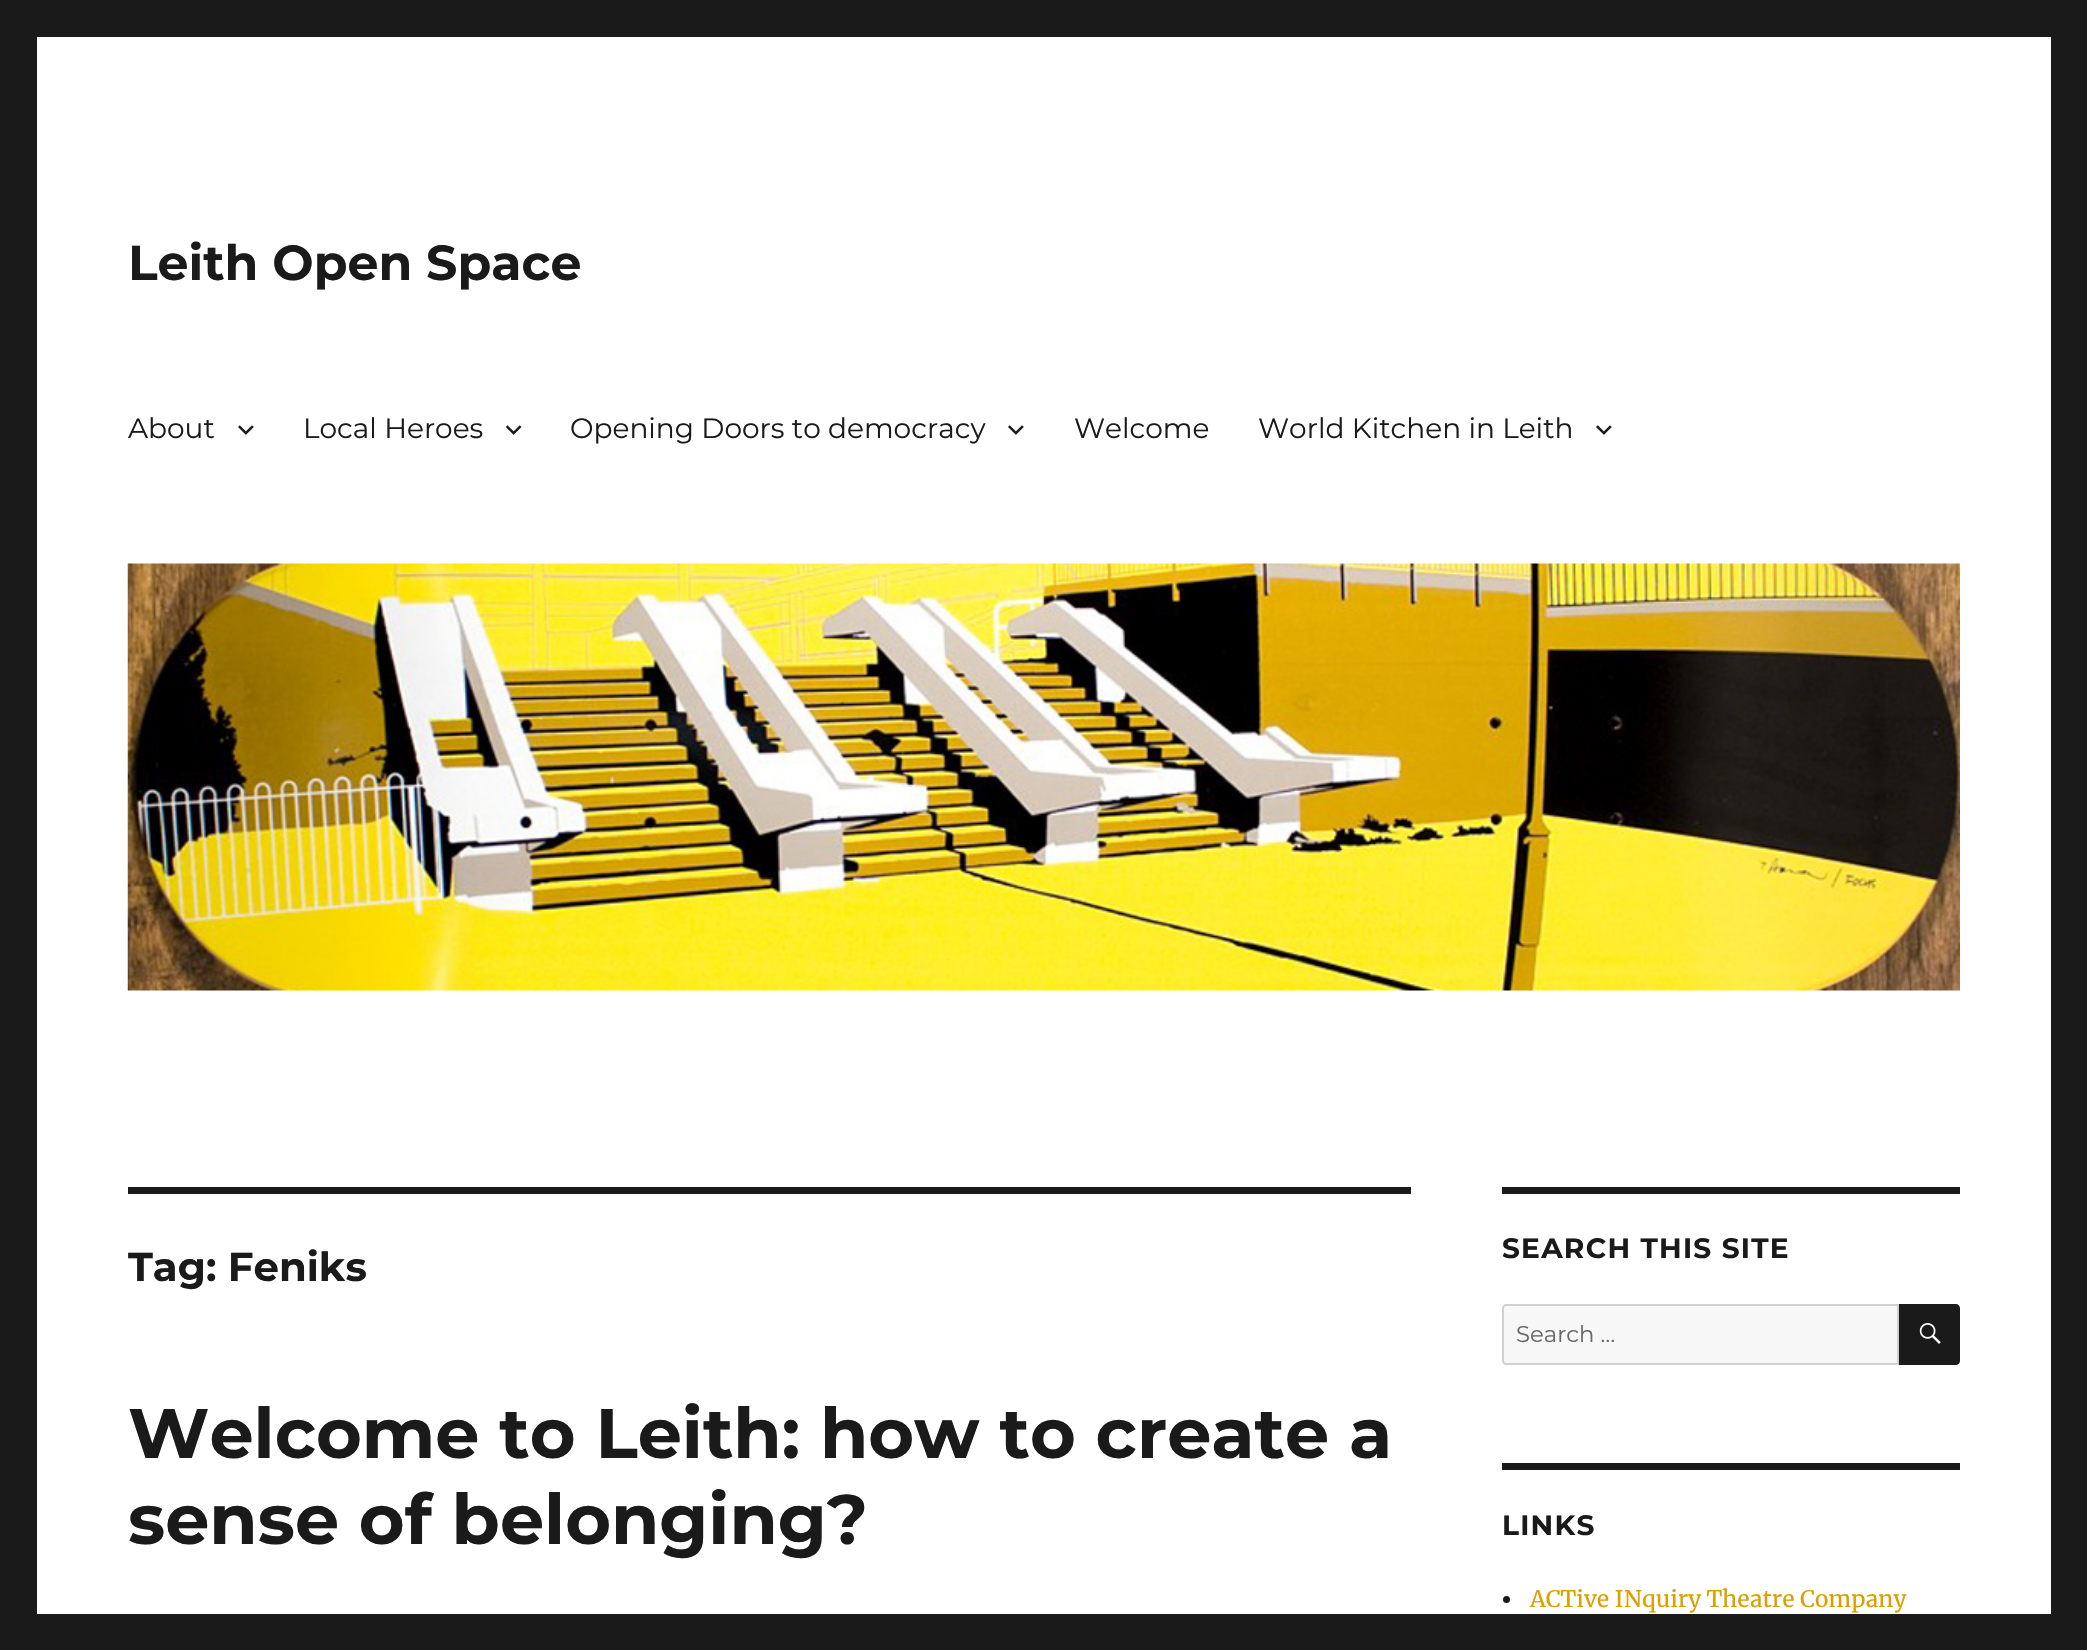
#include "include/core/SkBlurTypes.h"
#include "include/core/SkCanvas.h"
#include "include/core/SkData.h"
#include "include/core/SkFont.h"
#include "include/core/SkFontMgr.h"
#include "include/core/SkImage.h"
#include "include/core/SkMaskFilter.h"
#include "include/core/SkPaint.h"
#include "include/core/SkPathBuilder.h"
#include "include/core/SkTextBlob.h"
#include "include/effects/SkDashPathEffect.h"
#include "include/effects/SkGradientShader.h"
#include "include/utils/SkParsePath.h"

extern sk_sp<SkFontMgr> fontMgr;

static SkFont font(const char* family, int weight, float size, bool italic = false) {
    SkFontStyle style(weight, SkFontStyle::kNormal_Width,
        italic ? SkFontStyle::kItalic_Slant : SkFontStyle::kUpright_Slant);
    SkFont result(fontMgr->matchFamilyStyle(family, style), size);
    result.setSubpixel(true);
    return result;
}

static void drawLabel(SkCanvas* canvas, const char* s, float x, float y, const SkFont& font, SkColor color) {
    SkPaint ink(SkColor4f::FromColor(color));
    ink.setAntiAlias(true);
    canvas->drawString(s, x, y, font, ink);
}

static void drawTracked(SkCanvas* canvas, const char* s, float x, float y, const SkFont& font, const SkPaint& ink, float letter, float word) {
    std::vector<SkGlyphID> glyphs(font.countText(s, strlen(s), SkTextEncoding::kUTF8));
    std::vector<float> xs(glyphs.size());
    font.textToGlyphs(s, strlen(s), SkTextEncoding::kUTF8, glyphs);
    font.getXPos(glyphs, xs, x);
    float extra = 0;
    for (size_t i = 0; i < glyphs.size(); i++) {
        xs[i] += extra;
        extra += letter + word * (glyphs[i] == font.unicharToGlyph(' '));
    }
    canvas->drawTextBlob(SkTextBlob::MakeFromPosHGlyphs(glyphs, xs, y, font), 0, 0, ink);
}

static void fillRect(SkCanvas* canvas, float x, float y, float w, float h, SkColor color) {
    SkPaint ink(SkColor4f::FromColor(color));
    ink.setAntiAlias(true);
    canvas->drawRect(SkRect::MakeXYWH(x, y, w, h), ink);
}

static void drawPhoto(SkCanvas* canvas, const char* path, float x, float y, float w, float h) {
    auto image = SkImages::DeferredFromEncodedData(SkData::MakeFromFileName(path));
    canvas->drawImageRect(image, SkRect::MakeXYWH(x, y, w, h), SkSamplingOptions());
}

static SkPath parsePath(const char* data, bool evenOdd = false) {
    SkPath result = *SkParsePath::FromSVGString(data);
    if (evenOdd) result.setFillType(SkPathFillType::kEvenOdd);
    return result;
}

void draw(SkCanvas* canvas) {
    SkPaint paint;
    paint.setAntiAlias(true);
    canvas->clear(0xFF1A1A1A);
    fillRect(canvas, 37, 37, 2014, 1577, 0xFFFFFFFF);
    SkFont font1 = font("Montserrat", 100, 49);
    drawLabel(canvas, "Leith Open Space", 128, 280, font1, 0xFF1A1A1A);
    SkFont font2 = font("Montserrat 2", 100, 28);
    drawLabel(canvas, "About", 128, 438, font2, 0xFF1A1A1A);
    drawPhoto(canvas, "assets/img1.png", 238, 425, 16, 10);
    drawLabel(canvas, "Local Heroes", 303, 438, font2, 0xFF1A1A1A);
    drawPhoto(canvas, "assets/img2.png", 505, 425, 17, 10);
    drawLabel(canvas, "Opening Doors to democracy", 570, 438, font2, 0xFF1A1A1A);
    drawPhoto(canvas, "assets/img1.png", 1008, 425, 16, 10);
    drawLabel(canvas, "Welcome", 1074, 438, font2, 0xFF1A1A1A);
    drawLabel(canvas, "World Kitchen in Leith", 1258, 438, font2, 0xFF1A1A1A);
    drawPhoto(canvas, "assets/img1.png", 1596, 425, 16, 10);
    drawPhoto(canvas, "assets/img3.png", 127, 563, 1833, 428);
    fillRect(canvas, 128, 1187, 1283, 7, 0xFF1A1A1A);
    SkFont font3 = font("Montserrat", 100, 40.25f);
    drawLabel(canvas, "Tag: Feniks", 128, 1281, font3, 0xFF1A1A1A);
    SkFont font4 = font("Montserrat", 100, 70);
    drawLabel(canvas, "Welcome to Leith: how to create a", 128, 1458, font4, 0xFF1A1A1A);
    drawLabel(canvas, "sense of belonging?", 128, 1544, font4, 0xFF1A1A1A);
    fillRect(canvas, 1502, 1187, 458, 7, 0xFF1A1A1A);
    SkFont font5 = font("Montserrat", 100, 28);
    paint.setColor(0xFF1A1A1A);
    drawTracked(canvas, "SEARCH THIS SITE", 1502, 1258, font5, paint, 1.25f, 0);
    paint.setColor(0xFFF7F7F7);
    canvas->drawPath(parsePath("M1506 1305H1898V1364H1506C1504.5 1364 1503 1362.5 1503 1361V1308C1503 1306.5 1504.5 1305 1506 1305Z"), paint);
    paint.setStroke(true);
    paint.setStrokeWidth(2);
    paint.setColor(0xFFD1D1D1);
    canvas->drawPath(parsePath("M1506 1305H1898V1364H1506C1504.5 1364 1503 1362.5 1503 1361V1308C1503 1306.5 1504.5 1305 1506 1305Z"), paint);
    SkFont font6 = font("Montserrat 2", 100, 22.75f);
    drawLabel(canvas, "Search …", 1516, 1342, font6, 0xFF686868);
    paint.setStroke(false);
    paint.setColor(0xFF1A1A1A);
    canvas->drawPath(parsePath("M1899 1304H1956C1958 1304 1960 1306 1960 1308V1361C1960 1363 1958 1365 1956 1365H1899Z"), paint);
    drawPhoto(canvas, "assets/img4.png", 1919, 1323, 22, 21);
    fillRect(canvas, 1502, 1463, 458, 7, 0xFF1A1A1A);
    drawTracked(canvas, "LINKS", 1502, 1535, font5, paint, 1.25f, 0);
    canvas->drawCircle(1506.5f, 1599.5f, 3.5f, paint);
    SkFont font7 = font("Merriweather", 400, 22.75f);
    drawLabel(canvas, "ACTive INquiry Theatre Company", 1530, 1607, font7, 0xFFDBA000);
}
